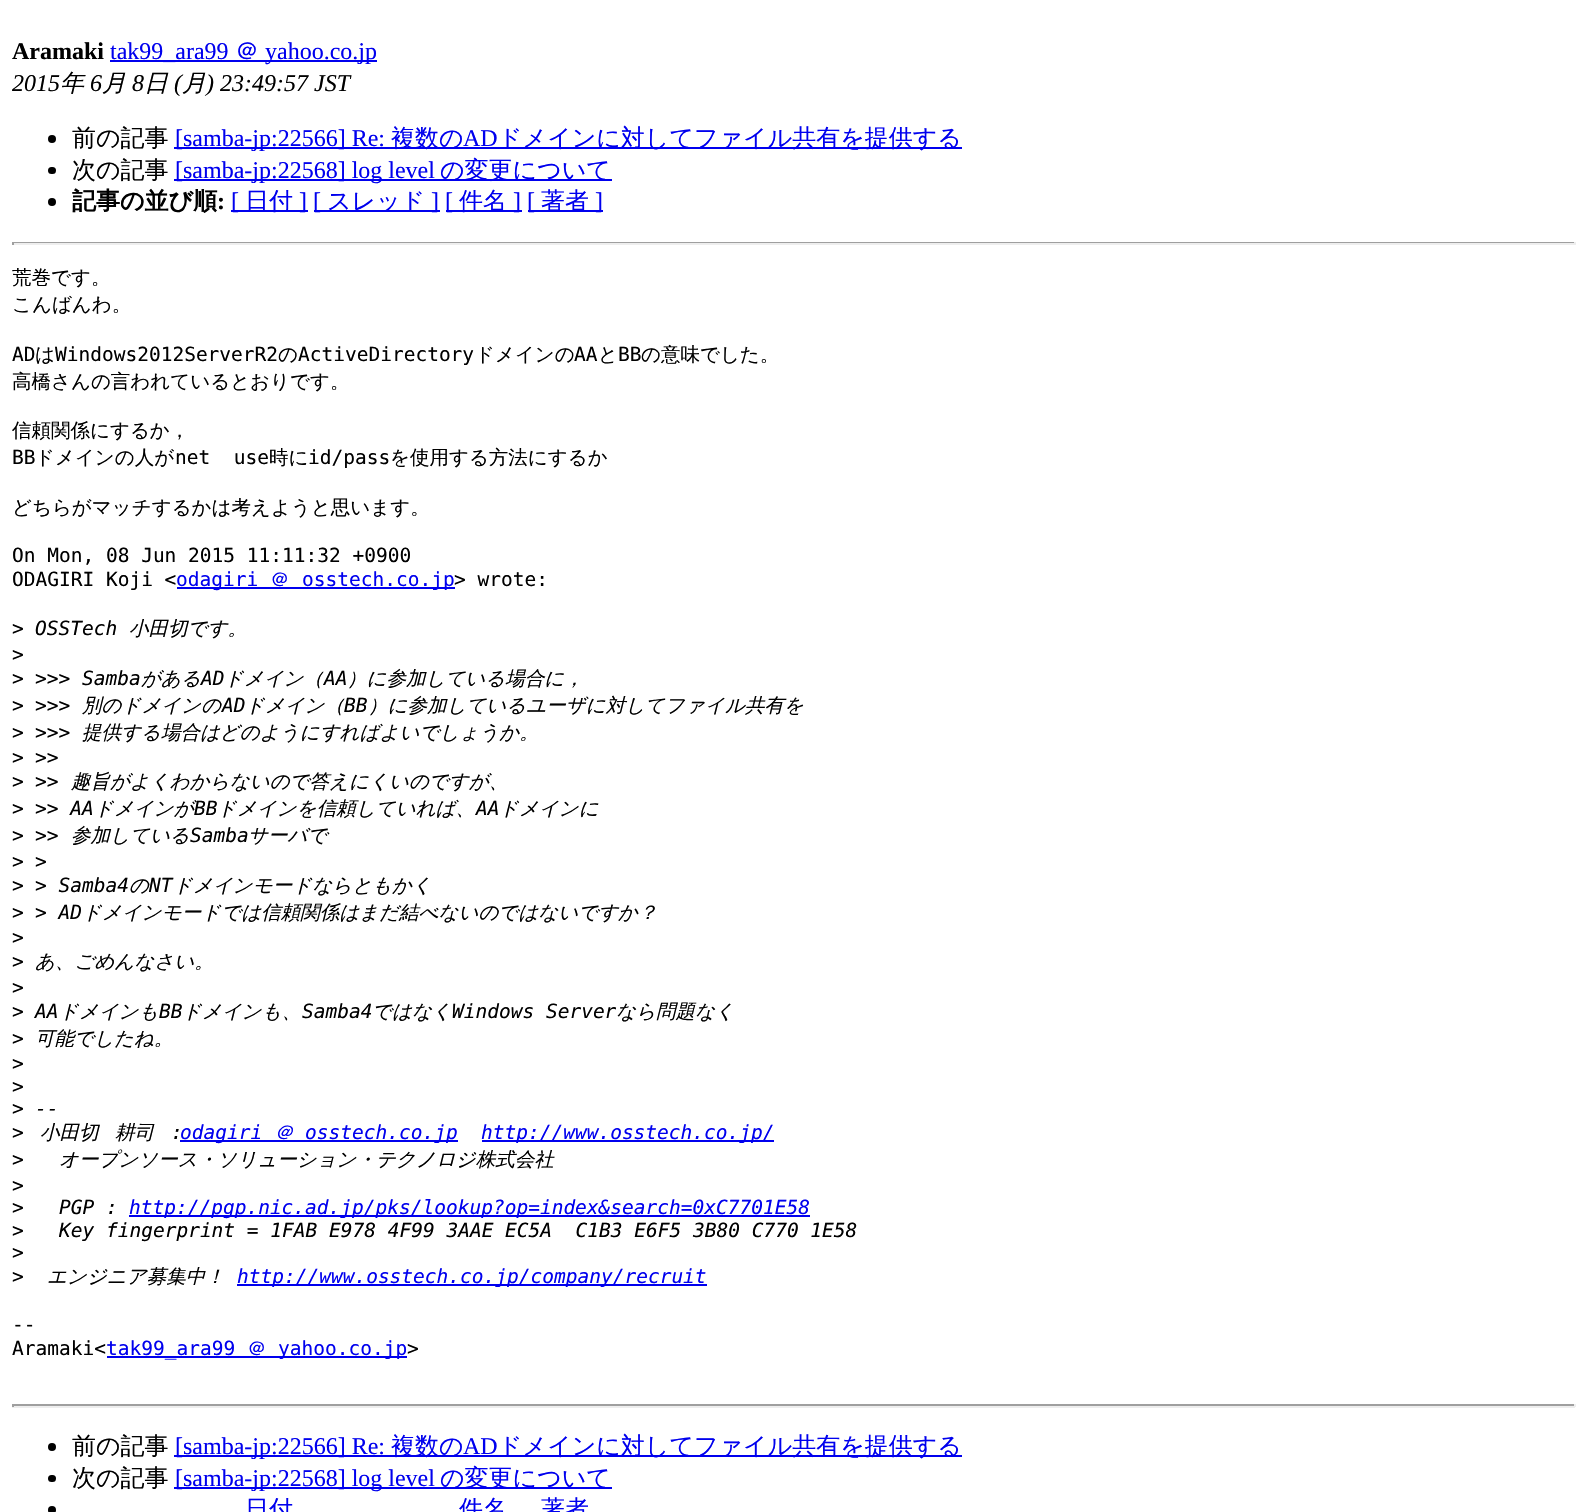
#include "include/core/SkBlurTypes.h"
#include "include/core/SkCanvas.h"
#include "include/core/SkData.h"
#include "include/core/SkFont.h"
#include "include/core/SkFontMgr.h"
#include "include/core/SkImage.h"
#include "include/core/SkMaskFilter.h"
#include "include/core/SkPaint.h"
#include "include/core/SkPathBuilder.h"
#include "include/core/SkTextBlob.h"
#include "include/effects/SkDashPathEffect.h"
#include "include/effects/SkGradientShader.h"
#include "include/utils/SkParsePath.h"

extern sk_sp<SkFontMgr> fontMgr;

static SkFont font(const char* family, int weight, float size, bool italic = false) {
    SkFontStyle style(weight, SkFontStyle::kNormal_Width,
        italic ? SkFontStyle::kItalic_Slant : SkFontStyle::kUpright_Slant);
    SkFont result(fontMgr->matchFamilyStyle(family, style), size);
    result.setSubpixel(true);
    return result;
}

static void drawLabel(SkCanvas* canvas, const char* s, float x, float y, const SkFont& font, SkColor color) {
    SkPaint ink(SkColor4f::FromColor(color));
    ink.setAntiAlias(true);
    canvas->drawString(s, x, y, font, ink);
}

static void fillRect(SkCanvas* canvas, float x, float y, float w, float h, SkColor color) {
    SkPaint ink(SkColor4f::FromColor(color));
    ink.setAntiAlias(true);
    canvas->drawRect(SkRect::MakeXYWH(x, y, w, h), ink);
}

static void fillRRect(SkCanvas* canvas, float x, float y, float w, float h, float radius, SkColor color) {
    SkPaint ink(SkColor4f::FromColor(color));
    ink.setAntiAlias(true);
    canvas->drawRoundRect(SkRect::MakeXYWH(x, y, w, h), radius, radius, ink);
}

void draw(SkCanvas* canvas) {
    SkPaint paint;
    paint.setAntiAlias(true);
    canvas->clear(0xFFFFFFFF);
    SkFont font1 = font("Liberation Serif", 700, 24);
    drawLabel(canvas, "Aramaki", 12, 59, font1, 0xFF000000);
    fillRect(canvas, 110, 60, 267, 2, 0xFF0000EE);
    SkFont font2 = font("Liberation Serif", 400, 24);
    drawLabel(canvas, "tak99_ara99", 110, 59, font2, 0xFF0000EE);
    SkFont font3 = font("WenQuanYi Zen Hei", 500, 24);
    drawLabel(canvas, "＠", 235, 59, font3, 0xFF0000EE);
    drawLabel(canvas, "yahoo.co.jp", 265, 59, font2, 0xFF0000EE);
    SkFont font4 = font("Liberation Serif", 400, 24, true);
    drawLabel(canvas, "2015", 12, 91, font4, 0xFF000000);
    SkFont font5 = font("WenQuanYi Zen Hei", 500, 24, true);
    drawLabel(canvas, "年", 60, 91, font5, 0xFF000000);
    drawLabel(canvas, "6", 90, 91, font4, 0xFF000000);
    drawLabel(canvas, "月", 102, 91, font5, 0xFF000000);
    drawLabel(canvas, "8", 132, 91, font4, 0xFF000000);
    drawLabel(canvas, "日", 144, 91, font5, 0xFF000000);
    drawLabel(canvas, "(", 174, 91, font4, 0xFF000000);
    drawLabel(canvas, "月", 182, 91, font5, 0xFF000000);
    drawLabel(canvas, ") 23:49:57 JST", 206, 91, font4, 0xFF000000);
    paint.setColor(0xFF000000);
    canvas->drawCircle(52, 139, 4, paint);
    drawLabel(canvas, "前の記事", 72, 146, font3, 0xFF000000);
    fillRect(canvas, 174, 147, 788, 2, 0xFF0000EE);
    drawLabel(canvas, "[samba-jp:22566] Re:", 175, 146, font2, 0xFF0000EE);
    drawLabel(canvas, "複数の", 391, 146, font3, 0xFF0000EE);
    drawLabel(canvas, "AD", 463, 146, font2, 0xFF0000EE);
    drawLabel(canvas, "ドメインに対してファイル共有を提供する", 498, 146, font3, 0xFF0000EE);
    fillRRect(canvas, 48, 167, 8, 7, 3.5f, 0xFF000000);
    drawLabel(canvas, "次の記事", 72, 178, font3, 0xFF000000);
    fillRect(canvas, 174, 179, 438, 2, 0xFF0000EE);
    drawLabel(canvas, "[samba-jp:22568] log level", 175, 178, font2, 0xFF0000EE);
    drawLabel(canvas, "の変更について", 440, 178, font3, 0xFF0000EE);
    canvas->drawCircle(52, 202, 4, paint);
    SkFont font6 = font("WenQuanYi Zen Hei", 700, 24);
    drawLabel(canvas, "記事の並び順", 72, 209, font6, 0xFF000000);
    drawLabel(canvas, ":", 217, 209, font1, 0xFF000000);
    fillRect(canvas, 231, 210, 77, 2, 0xFF0000EE);
    drawLabel(canvas, "[", 231, 209, font2, 0xFF0000EE);
    drawLabel(canvas, "日付", 245, 209, font3, 0xFF0000EE);
    drawLabel(canvas, "]", 299, 209, font2, 0xFF0000EE);
    fillRect(canvas, 314, 210, 126, 2, 0xFF0000EE);
    drawLabel(canvas, "[", 313, 209, font2, 0xFF0000EE);
    drawLabel(canvas, "スレッド", 327, 209, font3, 0xFF0000EE);
    drawLabel(canvas, "]", 431, 209, font2, 0xFF0000EE);
    fillRect(canvas, 446, 210, 76, 2, 0xFF0000EE);
    drawLabel(canvas, "[", 445, 209, font2, 0xFF0000EE);
    drawLabel(canvas, "件名", 459, 209, font3, 0xFF0000EE);
    drawLabel(canvas, "]", 513, 209, font2, 0xFF0000EE);
    fillRect(canvas, 528, 210, 75, 2, 0xFF0000EE);
    drawLabel(canvas, "[", 527, 209, font2, 0xFF0000EE);
    drawLabel(canvas, "著者", 541, 209, font3, 0xFF0000EE);
    drawLabel(canvas, "]", 595, 209, font2, 0xFF0000EE);
    fillRect(canvas, 12, 242, 1563, 1, 0xFF9F9F9F);
    fillRect(canvas, 1574, 242, 2, 3, 0xFFEEEEEE);
    fillRect(canvas, 12, 243, 1563, 2, 0xFFEEEEEE);
    fillRect(canvas, 12, 242, 2, 3, 0xFF9F9F9F);
    SkFont font7 = font("WenQuanYi Zen Hei", 500, 19.5f);
    drawLabel(canvas, "荒巻です。", 12, 284, font7, 0xFF000000);
    drawLabel(canvas, "こんばんわ。", 12, 311, font7, 0xFF000000);
    SkFont font8 = font("DejaVu Sans Mono", 400, 19.5f);
    drawLabel(canvas, "AD", 12, 361, font8, 0xFF000000);
    drawLabel(canvas, "は", 35, 361, font7, 0xFF000000);
    drawLabel(canvas, "Windows2012ServerR2", 55, 361, font8, 0xFF000000);
    drawLabel(canvas, "の", 278, 361, font7, 0xFF000000);
    drawLabel(canvas, "ActiveDirectory", 298, 361, font8, 0xFF000000);
    drawLabel(canvas, "ドメインの", 475, 361, font7, 0xFF000000);
    drawLabel(canvas, "AA", 574, 361, font8, 0xFF000000);
    drawLabel(canvas, "と", 598, 361, font7, 0xFF000000);
    drawLabel(canvas, "BB", 618, 361, font8, 0xFF000000);
    drawLabel(canvas, "の意味でした。", 641, 361, font7, 0xFF000000);
    drawLabel(canvas, "高橋さんの言われているとおりです。", 12, 388, font7, 0xFF000000);
    drawLabel(canvas, "信頼関係にするか，", 12, 437, font7, 0xFF000000);
    drawLabel(canvas, "BB", 12, 464, font8, 0xFF000000);
    drawLabel(canvas, "ドメインの人が", 35, 464, font7, 0xFF000000);
    drawLabel(canvas, "net  use", 175, 464, font8, 0xFF000000);
    drawLabel(canvas, "時に", 269, 464, font7, 0xFF000000);
    drawLabel(canvas, "id/pass", 308, 464, font8, 0xFF000000);
    drawLabel(canvas, "を使用する方法にするか", 390, 464, font7, 0xFF000000);
    drawLabel(canvas, "どちらがマッチするかは考えようと思います。", 12, 514, font7, 0xFF000000);
    drawLabel(canvas, "On Mon, 08 Jun 2015 11:11:32 +0900", 12, 562, font8, 0xFF000000);
    drawLabel(canvas, "ODAGIRI Koji <", 12, 586, font8, 0xFF000000);
    fillRect(canvas, 177, 587, 278, 2, 0xFF0000EE);
    drawLabel(canvas, "odagiri", 176, 586, font8, 0xFF0000EE);
    drawLabel(canvas, "＠", 270, 586, font7, 0xFF0000EE);
    drawLabel(canvas, "osstech.co.jp", 302, 586, font8, 0xFF0000EE);
    drawLabel(canvas, "> wrote:", 454, 586, font8, 0xFF000000);
    drawLabel(canvas, ">", 12, 635, font8, 0xFF000000);
    SkFont font9 = font("DejaVu Sans Mono", 400, 19.5f, true);
    drawLabel(canvas, "OSSTech", 35, 635, font9, 0xFF000000);
    SkFont font10 = font("WenQuanYi Zen Hei", 500, 19.5f, true);
    drawLabel(canvas, "小田切です。", 129, 635, font10, 0xFF000000);
    drawLabel(canvas, ">", 12, 661, font8, 0xFF000000);
    drawLabel(canvas, ">", 12, 685, font8, 0xFF000000);
    drawLabel(canvas, ">>> Samba", 35, 685, font9, 0xFF000000);
    drawLabel(canvas, "がある", 141, 685, font10, 0xFF000000);
    drawLabel(canvas, "AD", 201, 685, font9, 0xFF000000);
    drawLabel(canvas, "ドメイン（", 224, 685, font10, 0xFF000000);
    drawLabel(canvas, "AA", 324, 685, font9, 0xFF000000);
    drawLabel(canvas, "）に参加している場合に，", 347, 685, font10, 0xFF000000);
    drawLabel(canvas, ">", 12, 712, font8, 0xFF000000);
    drawLabel(canvas, ">>>", 35, 712, font9, 0xFF000000);
    drawLabel(canvas, "別のドメインの", 82, 712, font10, 0xFF000000);
    drawLabel(canvas, "AD", 222, 712, font9, 0xFF000000);
    drawLabel(canvas, "ドメイン（", 245, 712, font10, 0xFF000000);
    drawLabel(canvas, "BB", 344, 712, font9, 0xFF000000);
    drawLabel(canvas, "）に参加しているユーザに対してファイル共有を", 368, 712, font10, 0xFF000000);
    drawLabel(canvas, ">", 12, 739, font8, 0xFF000000);
    drawLabel(canvas, ">>>", 35, 739, font9, 0xFF000000);
    drawLabel(canvas, "提供する場合はどのようにすればよいでしょうか。", 82, 739, font10, 0xFF000000);
    drawLabel(canvas, ">", 12, 764, font8, 0xFF000000);
    drawLabel(canvas, ">>", 35, 764, font9, 0xFF000000);
    drawLabel(canvas, ">", 12, 788, font8, 0xFF000000);
    drawLabel(canvas, ">>", 35, 788, font9, 0xFF000000);
    drawLabel(canvas, "趣旨がよくわからないので答えにくいのですが、", 71, 788, font10, 0xFF000000);
    drawLabel(canvas, ">", 12, 815, font8, 0xFF000000);
    drawLabel(canvas, ">> AA", 35, 815, font9, 0xFF000000);
    drawLabel(canvas, "ドメインが", 94, 815, font10, 0xFF000000);
    drawLabel(canvas, "BB", 194, 815, font9, 0xFF000000);
    drawLabel(canvas, "ドメインを信頼していれば、", 217, 815, font10, 0xFF000000);
    drawLabel(canvas, "AA", 476, 815, font9, 0xFF000000);
    drawLabel(canvas, "ドメインに", 499, 815, font10, 0xFF000000);
    drawLabel(canvas, ">", 12, 842, font8, 0xFF000000);
    drawLabel(canvas, ">>", 35, 842, font9, 0xFF000000);
    drawLabel(canvas, "参加している", 71, 842, font10, 0xFF000000);
    drawLabel(canvas, "Samba", 190, 842, font9, 0xFF000000);
    drawLabel(canvas, "サーバで", 248, 842, font10, 0xFF000000);
    drawLabel(canvas, ">", 12, 868, font8, 0xFF000000);
    drawLabel(canvas, ">", 35, 868, font9, 0xFF000000);
    drawLabel(canvas, ">", 12, 892, font8, 0xFF000000);
    drawLabel(canvas, "> Samba4", 35, 892, font9, 0xFF000000);
    drawLabel(canvas, "の", 129, 892, font10, 0xFF000000);
    drawLabel(canvas, "NT", 149, 892, font9, 0xFF000000);
    drawLabel(canvas, "ドメインモードならともかく", 173, 892, font10, 0xFF000000);
    drawLabel(canvas, ">", 12, 919, font8, 0xFF000000);
    drawLabel(canvas, "> AD", 35, 919, font9, 0xFF000000);
    drawLabel(canvas, "ドメインモードでは信頼関係はまだ結べないのではないですか？", 82, 919, font10, 0xFF000000);
    drawLabel(canvas, ">", 12, 944, font8, 0xFF000000);
    drawLabel(canvas, ">", 12, 968, font8, 0xFF000000);
    drawLabel(canvas, "あ、ごめんなさい。", 35, 968, font10, 0xFF000000);
    drawLabel(canvas, ">", 12, 994, font8, 0xFF000000);
    drawLabel(canvas, ">", 12, 1018, font8, 0xFF000000);
    drawLabel(canvas, "AA", 35, 1018, font9, 0xFF000000);
    drawLabel(canvas, "ドメインも", 59, 1018, font10, 0xFF000000);
    drawLabel(canvas, "BB", 159, 1018, font9, 0xFF000000);
    drawLabel(canvas, "ドメインも、", 182, 1018, font10, 0xFF000000);
    drawLabel(canvas, "Samba4", 302, 1018, font9, 0xFF000000);
    drawLabel(canvas, "ではなく", 372, 1018, font10, 0xFF000000);
    drawLabel(canvas, "Windows Server", 452, 1018, font9, 0xFF000000);
    drawLabel(canvas, "なら問題なく", 616, 1018, font10, 0xFF000000);
    drawLabel(canvas, ">", 12, 1045, font8, 0xFF000000);
    drawLabel(canvas, "可能でしたね。", 35, 1045, font10, 0xFF000000);
    drawLabel(canvas, ">", 12, 1070, font8, 0xFF000000);
    drawLabel(canvas, ">", 12, 1093, font8, 0xFF000000);
    drawLabel(canvas, ">", 12, 1115, font8, 0xFF000000);
    drawLabel(canvas, "--", 35, 1115, font9, 0xFF000000);
    drawLabel(canvas, ">", 12, 1139, font8, 0xFF000000);
    drawLabel(canvas, "小田切", 40, 1139, font10, 0xFF000000);
    drawLabel(canvas, "耕司", 115, 1139, font10, 0xFF000000);
    drawLabel(canvas, ":", 171, 1139, font9, 0xFF000000);
    fillRect(canvas, 180, 1140, 278, 2, 0xFF0000EE);
    drawLabel(canvas, "odagiri", 180, 1139, font9, 0xFF0000EE);
    drawLabel(canvas, "＠", 274, 1139, font10, 0xFF0000EE);
    drawLabel(canvas, "osstech.co.jp", 305, 1139, font9, 0xFF0000EE);
    fillRect(canvas, 482, 1140, 292, 2, 0xFF0000EE);
    drawLabel(canvas, "http://www.osstech.co.jp/", 481, 1139, font9, 0xFF0000EE);
    drawLabel(canvas, ">", 12, 1166, font8, 0xFF000000);
    drawLabel(canvas, "オープンソース・ソリューション・テクノロジ株式会社", 59, 1166, font10, 0xFF000000);
    drawLabel(canvas, ">", 12, 1192, font8, 0xFF000000);
    drawLabel(canvas, ">", 12, 1214, font8, 0xFF000000);
    drawLabel(canvas, "PGP :", 59, 1214, font9, 0xFF000000);
    fillRect(canvas, 129, 1215, 681, 2, 0xFF0000EE);
    drawLabel(canvas, "http://pgp.nic.ad.jp/pks/lookup?op=index&search=0xC7701E58", 129, 1214, font9, 0xFF0000EE);
    drawLabel(canvas, ">", 12, 1237, font8, 0xFF000000);
    drawLabel(canvas, "Key fingerprint = 1FAB E978 4F99 3AAE EC5A  C1B3 E6F5 3B80 C770 1E58", 59, 1237, font9, 0xFF000000);
    drawLabel(canvas, ">", 12, 1259, font8, 0xFF000000);
    drawLabel(canvas, ">", 12, 1283, font8, 0xFF000000);
    drawLabel(canvas, "エンジニア募集中！", 47, 1283, font10, 0xFF000000);
    fillRect(canvas, 237, 1284, 470, 2, 0xFF0000EE);
    drawLabel(canvas, "http://www.osstech.co.jp/company/recruit", 237, 1283, font9, 0xFF0000EE);
    drawLabel(canvas, "--", 12, 1331, font8, 0xFF000000);
    drawLabel(canvas, "Aramaki<", 12, 1355, font8, 0xFF000000);
    fillRect(canvas, 107, 1356, 300, 2, 0xFF0000EE);
    drawLabel(canvas, "tak99_ara99", 106, 1355, font8, 0xFF0000EE);
    drawLabel(canvas, "＠", 247, 1355, font7, 0xFF0000EE);
    drawLabel(canvas, "yahoo.co.jp", 278, 1355, font8, 0xFF0000EE);
    drawLabel(canvas, ">", 407, 1355, font8, 0xFF000000);
    fillRect(canvas, 12, 1404, 1563, 2, 0xFF9F9F9F);
    fillRect(canvas, 1574, 1404, 2, 3, 0xFFEEEEEE);
    fillRect(canvas, 12, 1406, 1563, 2, 0xFFEEEEEE);
    fillRect(canvas, 12, 1404, 2, 3, 0xFF9F9F9F);
    canvas->drawCircle(52, 1447, 4, paint);
    drawLabel(canvas, "前の記事", 72, 1454, font3, 0xFF000000);
    fillRect(canvas, 174, 1455, 788, 2, 0xFF0000EE);
    drawLabel(canvas, "[samba-jp:22566] Re:", 175, 1454, font2, 0xFF0000EE);
    drawLabel(canvas, "複数の", 391, 1454, font3, 0xFF0000EE);
    drawLabel(canvas, "AD", 463, 1454, font2, 0xFF0000EE);
    drawLabel(canvas, "ドメインに対してファイル共有を提供する", 498, 1454, font3, 0xFF0000EE);
    fillRRect(canvas, 48, 1475, 8, 7, 3.5f, 0xFF000000);
    drawLabel(canvas, "次の記事", 72, 1486, font3, 0xFF000000);
    fillRect(canvas, 174, 1487, 438, 2, 0xFF0000EE);
    drawLabel(canvas, "[samba-jp:22568] log level", 175, 1486, font2, 0xFF0000EE);
    drawLabel(canvas, "の変更について", 440, 1486, font3, 0xFF0000EE);
    canvas->drawCircle(52, 1510, 4, paint);
    drawLabel(canvas, "日付", 245, 1517, font3, 0xFF0000EE);
    drawLabel(canvas, "件名", 459, 1517, font3, 0xFF0000EE);
    drawLabel(canvas, "著者", 541, 1517, font3, 0xFF0000EE);
}
